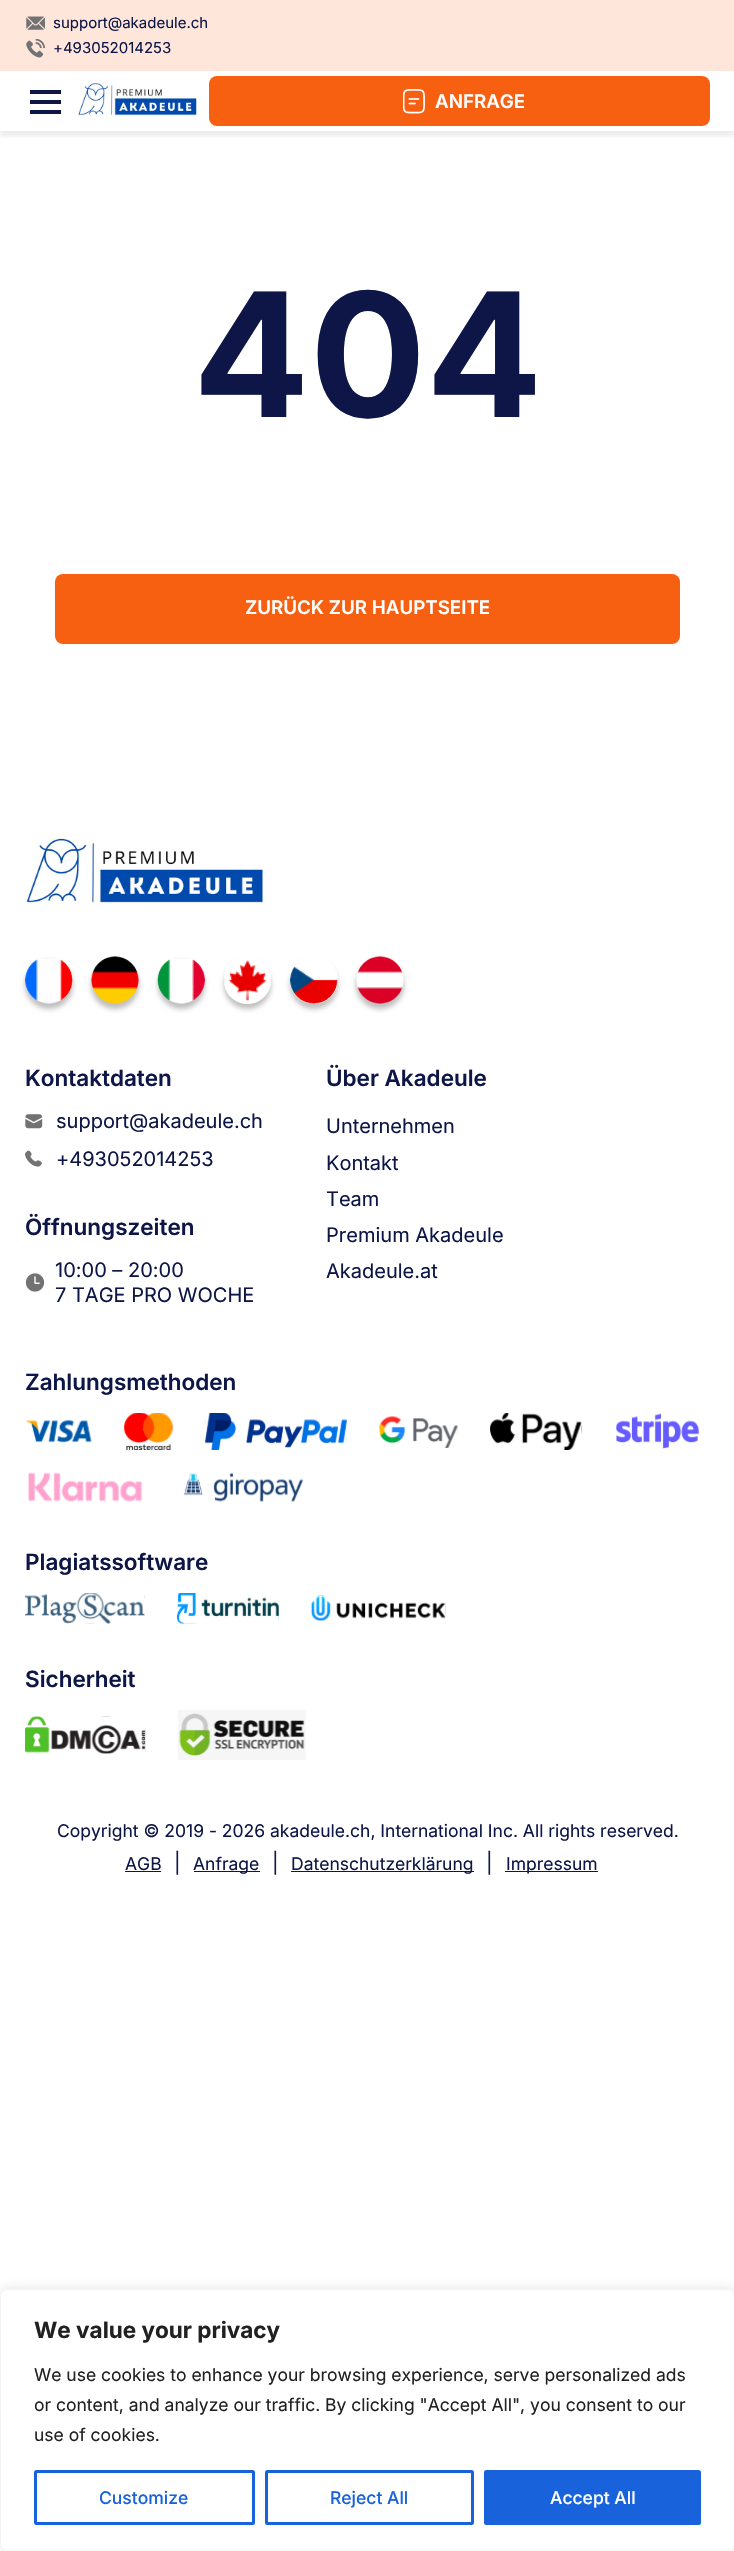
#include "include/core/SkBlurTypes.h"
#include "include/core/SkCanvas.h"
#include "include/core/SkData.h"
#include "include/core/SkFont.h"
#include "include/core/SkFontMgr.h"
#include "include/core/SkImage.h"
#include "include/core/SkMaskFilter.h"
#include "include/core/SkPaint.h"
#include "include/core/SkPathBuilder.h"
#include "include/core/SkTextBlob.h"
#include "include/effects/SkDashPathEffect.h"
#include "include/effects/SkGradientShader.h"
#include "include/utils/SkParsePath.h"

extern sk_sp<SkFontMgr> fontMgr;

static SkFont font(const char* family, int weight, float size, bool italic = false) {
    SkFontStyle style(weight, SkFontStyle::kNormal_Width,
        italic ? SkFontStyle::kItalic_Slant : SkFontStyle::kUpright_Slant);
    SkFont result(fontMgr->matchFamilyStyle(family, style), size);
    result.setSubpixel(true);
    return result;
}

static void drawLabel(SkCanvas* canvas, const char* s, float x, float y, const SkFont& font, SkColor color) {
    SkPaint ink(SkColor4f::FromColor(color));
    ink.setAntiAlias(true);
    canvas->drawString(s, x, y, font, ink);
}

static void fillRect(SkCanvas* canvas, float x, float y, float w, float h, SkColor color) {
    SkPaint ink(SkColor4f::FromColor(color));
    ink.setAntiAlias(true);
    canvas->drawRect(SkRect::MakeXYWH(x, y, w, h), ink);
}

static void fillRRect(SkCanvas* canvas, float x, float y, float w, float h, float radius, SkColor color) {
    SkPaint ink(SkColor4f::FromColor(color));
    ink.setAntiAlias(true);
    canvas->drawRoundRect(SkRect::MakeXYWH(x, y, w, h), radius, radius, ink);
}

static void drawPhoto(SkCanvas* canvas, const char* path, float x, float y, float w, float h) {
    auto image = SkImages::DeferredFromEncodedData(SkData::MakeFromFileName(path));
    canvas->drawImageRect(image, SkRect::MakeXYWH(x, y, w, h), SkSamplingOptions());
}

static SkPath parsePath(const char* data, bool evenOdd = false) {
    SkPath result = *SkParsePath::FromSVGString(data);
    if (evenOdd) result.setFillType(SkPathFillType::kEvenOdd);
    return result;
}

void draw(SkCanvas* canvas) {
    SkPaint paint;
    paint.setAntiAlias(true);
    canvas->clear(0xFFFFFFFF);
    fillRect(canvas, 0, 0, 734, 71, 0xFFFFE6DB);
    drawPhoto(canvas, "assets/img1.png", 26, 16, 19, 14);
    SkFont font1 = font("Inter", 400, 15);
    drawLabel(canvas, "support@akadeule.ch", 53, 28, font1, 0xFF0D1647);
    drawPhoto(canvas, "assets/img2.png", 26, 39, 19, 19);
    drawLabel(canvas, "+493052014253", 53, 53, font1, 0xFF0D1647);
    canvas->save();
    canvas->clipRect(SkRect::MakeXYWH(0, 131, 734, 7));
    paint.setColor(0x14000000);
    paint.setMaskFilter(SkMaskFilter::MakeBlur(kNormal_SkBlurStyle, 2.5f));
    canvas->drawRect(SkRect::MakeXYWH(0, 76, 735, 60), paint);
    paint.setMaskFilter(nullptr);
    canvas->restore();
    fillRect(canvas, 30, 90, 31, 4, 0xFF0D1647);
    fillRect(canvas, 30, 100, 31, 4, 0xFF0D1647);
    fillRect(canvas, 30, 110, 31, 4, 0xFF0D1647);
    drawPhoto(canvas, "assets/img3.png", 78, 83, 119, 33);
    fillRRect(canvas, 209, 76, 501, 50, 8, 0xFFF86011);
    drawPhoto(canvas, "assets/img4.png", 403, 89, 22, 25);
    SkFont font2 = font("Inter", 600, 18.75f);
    drawLabel(canvas, "ANFRAGE", 435, 108, font2, 0xFFFFFFFF);
    SkFont font3 = font("Inter", 700, 172.5f);
    drawLabel(canvas, "404", 193, 417, font3, 0xFF0D1647);
    fillRRect(canvas, 55, 574, 625, 70, 8, 0xFFF86011);
    drawLabel(canvas, "ZURÜCK ZUR HAUPTSEITE", 245, 614, font2, 0xFFFFFFFF);
    drawPhoto(canvas, "assets/img5.png", 26, 838, 237, 65);
    paint.setColor(0x40000000);
    paint.setMaskFilter(SkMaskFilter::MakeBlur(kNormal_SkBlurStyle, 2.5f));
    canvas->drawRoundRect(SkRect::MakeXYWH(25, 961, 48, 48), 24, 24, paint);
    paint.setMaskFilter(nullptr);
    drawPhoto(canvas, "assets/img6.png", 25, 959, 48, 45);
    paint.setMaskFilter(SkMaskFilter::MakeBlur(kNormal_SkBlurStyle, 2.5f));
    canvas->drawRoundRect(SkRect::MakeXYWH(91, 961, 48, 48), 24, 24, paint);
    paint.setMaskFilter(nullptr);
    drawPhoto(canvas, "assets/img7.png", 91, 956, 48, 48);
    paint.setMaskFilter(SkMaskFilter::MakeBlur(kNormal_SkBlurStyle, 2.5f));
    canvas->drawRoundRect(SkRect::MakeXYWH(158, 961, 47, 48), 23.5f, 23.5f, paint);
    paint.setMaskFilter(nullptr);
    drawPhoto(canvas, "assets/img8.png", 157, 959, 48, 45);
    canvas->save();
    canvas->clipPath(parsePath("M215 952H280V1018H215ZM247.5 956C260.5 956 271 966.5 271 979.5V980.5C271 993.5 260.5 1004 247.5 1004C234.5 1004 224 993.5 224 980.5V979.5C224 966.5 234.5 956 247.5 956Z", true), true);
    paint.setMaskFilter(SkMaskFilter::MakeBlur(kNormal_SkBlurStyle, 2.5f));
    canvas->drawRoundRect(SkRect::MakeXYWH(224, 961, 47, 48), 23.5f, 23.5f, paint);
    paint.setMaskFilter(nullptr);
    canvas->restore();
    drawPhoto(canvas, "assets/img9.png", 224, 960, 47, 44);
    canvas->save();
    canvas->clipPath(parsePath("M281 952H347V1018H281ZM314 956C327.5 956 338 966.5 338 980C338 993.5 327.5 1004 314 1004C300.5 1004 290 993.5 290 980C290 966.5 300.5 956 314 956Z", true), true);
    paint.setMaskFilter(SkMaskFilter::MakeBlur(kNormal_SkBlurStyle, 2.5f));
    canvas->drawRoundRect(SkRect::MakeXYWH(290, 961, 48, 48), 24, 24, paint);
    paint.setMaskFilter(nullptr);
    canvas->restore();
    drawPhoto(canvas, "assets/img10.png", 290, 966, 48, 38);
    paint.setMaskFilter(SkMaskFilter::MakeBlur(kNormal_SkBlurStyle, 2.5f));
    canvas->drawRoundRect(SkRect::MakeXYWH(356, 961, 48, 48), 24, 24, paint);
    paint.setMaskFilter(nullptr);
    drawPhoto(canvas, "assets/img11.png", 356, 956, 48, 48);
    SkFont font4 = font("Inter", 600, 22.5f);
    drawLabel(canvas, "Kontaktdaten", 25, 1086, font4, 0xFF0D1647);
    drawPhoto(canvas, "assets/img12.png", 25, 1114, 18, 15);
    SkFont font5 = font("Inter", 400, 20);
    drawLabel(canvas, "support@akadeule.ch", 56, 1128, font5, 0xFF0D1647);
    drawPhoto(canvas, "assets/img13.png", 25, 1150, 17, 17);
    drawLabel(canvas, "+493052014253", 56, 1166, font5, 0xFF0D1647);
    drawLabel(canvas, "Öffnungszeiten", 25, 1235, font4, 0xFF0D1647);
    drawPhoto(canvas, "assets/img14.png", 25, 1273, 20, 19);
    drawLabel(canvas, "10:00 – 20:00", 55, 1277, font5, 0xFF0D1647);
    drawLabel(canvas, "7 TAGE PRO WOCHE", 55, 1302, font5, 0xFF0D1647);
    drawLabel(canvas, "Über Akadeule", 326, 1086, font4, 0xFF0D1647);
    drawLabel(canvas, "Unternehmen", 326, 1133, font5, 0xFF0D1647);
    drawLabel(canvas, "Kontakt", 326, 1170, font5, 0xFF0D1647);
    drawLabel(canvas, "Team", 326, 1206, font5, 0xFF0D1647);
    drawLabel(canvas, "Premium Akadeule", 326, 1242, font5, 0xFF0D1647);
    drawLabel(canvas, "Akadeule.at", 326, 1278, font5, 0xFF0D1647);
    drawLabel(canvas, "Zahlungsmethoden", 25, 1390, font4, 0xFF0D1647);
    drawPhoto(canvas, "assets/img15.png", 25, 1419, 67, 24);
    drawPhoto(canvas, "assets/img16.png", 124, 1413, 49, 37);
    drawPhoto(canvas, "assets/img17.png", 205, 1413, 142, 37);
    drawPhoto(canvas, "assets/img18.png", 379, 1416, 79, 32);
    drawPhoto(canvas, "assets/img19.png", 490, 1413, 92, 37);
    drawPhoto(canvas, "assets/img20.png", 616, 1413, 83, 36);
    drawPhoto(canvas, "assets/img21.png", 28, 1472, 115, 30);
    drawPhoto(canvas, "assets/img22.png", 183, 1472, 121, 30);
    drawLabel(canvas, "Plagiatssoftware", 25, 1570, font4, 0xFF0D1647);
    drawPhoto(canvas, "assets/img23.png", 25, 1593, 120, 31);
    drawPhoto(canvas, "assets/img24.png", 177, 1593, 102, 31);
    drawPhoto(canvas, "assets/img25.png", 311, 1595, 135, 26);
    drawLabel(canvas, "Sicherheit", 25, 1687, font4, 0xFF0D1647);
    drawPhoto(canvas, "assets/img26.png", 25, 1716, 121, 38);
    drawPhoto(canvas, "assets/img27.png", 178, 1710, 128, 50);
    SkFont font6 = font("Inter", 400, 17.5f);
    drawLabel(canvas, "Copyright © 2019 - 2026 akadeule.ch, International Inc. All rights reserved.", 57, 1837, font6, 0xFF0D1647);
    drawLabel(canvas, "AGB", 125, 1870, font6, 0xFF0D1647);
    fillRect(canvas, 125, 1871, 36, 1, 0xFF0D1647);
    drawLabel(canvas, "|", 174, 1870, font5, 0xFF0D1647);
    fillRect(canvas, 194, 1871, 66, 1, 0xFF0D1647);
    drawLabel(canvas, "Anfrage", 193, 1870, font6, 0xFF0D1647);
    drawLabel(canvas, "|", 272, 1870, font5, 0xFF0D1647);
    fillRect(canvas, 291, 1871, 183, 1, 0xFF0D1647);
    drawLabel(canvas, "Datenschutzerklärung", 291, 1870, font6, 0xFF0D1647);
    drawLabel(canvas, "|", 486, 1870, font5, 0xFF0D1647);
    fillRect(canvas, 505, 1871, 93, 1, 0xFF0D1647);
    drawLabel(canvas, "Impressum", 506, 1870, font6, 0xFF0D1647);
    canvas->save();
    canvas->clipPath(parsePath("M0 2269H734V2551H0ZM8 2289H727C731.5 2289 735 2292.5 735 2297V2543C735 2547.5 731.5 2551 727 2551H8C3.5 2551 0 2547.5 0 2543V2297C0 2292.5 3.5 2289 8 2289Z", true), true);
    paint.setColor(0x4DACABAB);
    paint.setMaskFilter(SkMaskFilter::MakeBlur(kNormal_SkBlurStyle, 6));
    canvas->drawRoundRect(SkRect::MakeXYWH(0, 2288, 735, 262), 8, 8, paint);
    paint.setMaskFilter(nullptr);
    canvas->restore();
    paint.setStroke(true);
    paint.setStrokeWidth(1);
    paint.setColor(0xFFF4F4F4);
    canvas->drawRoundRect(SkRect::MakeXYWH(0.5f, 2289.5f, 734, 261), 7.5f, 7.5f, paint);
    SkFont font7 = font("Inter", 700, 22.5f);
    drawLabel(canvas, "We value your privacy", 34, 2338, font7, 0xFF212121);
    drawLabel(canvas, "We use cookies to enhance your browsing experience, serve personalized ads", 34, 2381, font6, 0xFF212121);
    drawLabel(canvas, "or content, and analyze our traffic. By clicking \"Accept All\", you consent to our", 34, 2411, font6, 0xFF212121);
    drawLabel(canvas, "use of cookies.", 34, 2441, font6, 0xFF212121);
    paint.setStrokeWidth(3);
    paint.setColor(0xFF1863DC);
    canvas->drawRoundRect(SkRect::MakeXYWH(35.5f, 2471.5f, 218, 52), 1, 1, paint);
    SkFont font8 = font("Inter", 500, 17.5f);
    drawLabel(canvas, "Customize", 99, 2504, font8, 0xFF1863DC);
    canvas->drawRoundRect(SkRect::MakeXYWH(266.5f, 2471.5f, 206, 52), 1, 1, paint);
    drawLabel(canvas, "Reject All", 330, 2504, font8, 0xFF1863DC);
    paint.setStroke(false);
    canvas->drawRoundRect(SkRect::MakeXYWH(485.5f, 2471.5f, 214, 52), 1, 1, paint);
    paint.setStroke(true);
    canvas->drawRoundRect(SkRect::MakeXYWH(485.5f, 2471.5f, 214, 52), 1, 1, paint);
    drawLabel(canvas, "Accept All", 550, 2504, font8, 0xFFFFFFFF);
}
